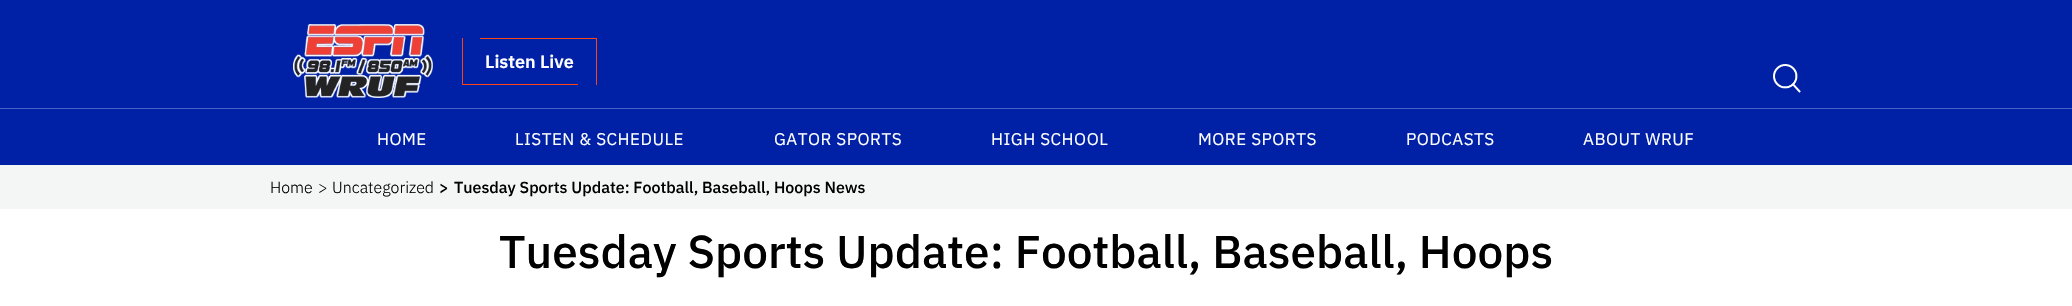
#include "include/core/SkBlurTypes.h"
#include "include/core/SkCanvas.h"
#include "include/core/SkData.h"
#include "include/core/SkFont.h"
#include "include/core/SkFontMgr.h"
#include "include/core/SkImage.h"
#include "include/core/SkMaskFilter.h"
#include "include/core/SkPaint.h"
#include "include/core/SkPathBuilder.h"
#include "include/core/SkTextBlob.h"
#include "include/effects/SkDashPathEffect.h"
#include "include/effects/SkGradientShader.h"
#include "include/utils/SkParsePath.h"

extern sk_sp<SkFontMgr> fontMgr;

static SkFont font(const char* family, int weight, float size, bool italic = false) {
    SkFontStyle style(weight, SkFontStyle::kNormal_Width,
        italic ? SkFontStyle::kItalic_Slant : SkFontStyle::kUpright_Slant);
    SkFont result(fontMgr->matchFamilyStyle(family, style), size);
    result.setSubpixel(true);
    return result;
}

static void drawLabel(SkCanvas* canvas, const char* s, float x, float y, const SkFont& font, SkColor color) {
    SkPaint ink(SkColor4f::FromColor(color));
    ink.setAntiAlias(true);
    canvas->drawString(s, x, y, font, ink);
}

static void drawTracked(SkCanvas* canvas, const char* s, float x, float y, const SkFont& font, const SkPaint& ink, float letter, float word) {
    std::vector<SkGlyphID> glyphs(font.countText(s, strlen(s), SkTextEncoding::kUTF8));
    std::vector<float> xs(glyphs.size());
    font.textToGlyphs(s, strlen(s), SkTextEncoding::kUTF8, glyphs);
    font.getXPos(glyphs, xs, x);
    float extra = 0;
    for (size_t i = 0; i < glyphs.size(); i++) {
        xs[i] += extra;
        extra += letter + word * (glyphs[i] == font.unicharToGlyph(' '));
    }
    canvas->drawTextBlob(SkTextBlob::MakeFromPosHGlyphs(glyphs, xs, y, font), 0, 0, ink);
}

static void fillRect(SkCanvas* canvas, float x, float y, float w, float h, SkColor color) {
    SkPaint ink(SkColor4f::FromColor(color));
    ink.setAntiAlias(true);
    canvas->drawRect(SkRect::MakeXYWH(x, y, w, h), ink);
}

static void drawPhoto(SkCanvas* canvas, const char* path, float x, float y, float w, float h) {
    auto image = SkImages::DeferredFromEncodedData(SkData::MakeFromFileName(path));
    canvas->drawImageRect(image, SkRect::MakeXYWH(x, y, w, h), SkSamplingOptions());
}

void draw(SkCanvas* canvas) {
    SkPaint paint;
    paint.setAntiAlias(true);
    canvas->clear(0xFFFFFFFF);
    fillRect(canvas, 0, 0, 2072, 108, 0xFF0021A5);
    fillRect(canvas, 0, 108, 2072, 1, 0xFF4A63CB);
    drawPhoto(canvas, "assets/img1.png", 293, 24, 140, 74);
    fillRect(canvas, 596, 38, 1, 47, 0xFFFA4616);
    fillRect(canvas, 462, 38, 1, 47, 0xFFFA4616);
    fillRect(canvas, 480, 38, 116, 1, 0xFFFA4616);
    SkFont font1 = font("IBM Plex Sans", 600, 18);
    drawLabel(canvas, "Listen Live", 485, 68, font1, 0xFFFFFFFF);
    fillRect(canvas, 463, 84, 115, 1, 0xFFFA4616);
    drawPhoto(canvas, "assets/img2.png", 1773, 64, 28, 29);
    fillRect(canvas, 0, 109, 2072, 56, 0xFF0021A5);
    SkFont font2 = font("IBM Plex Sans", 400, 17);
    paint.setColor(0xFFFFFFFF);
    drawTracked(canvas, "HOME", 377, 145, font2, paint, 0.5f, 0);
    drawTracked(canvas, "LISTEN & SCHEDULE", 515, 145, font2, paint, 0.5f, 0);
    drawTracked(canvas, "GATOR SPORTS", 774, 145, font2, paint, 0.5f, 0);
    drawTracked(canvas, "HIGH SCHOOL", 991, 145, font2, paint, 0.5f, 0);
    drawTracked(canvas, "MORE SPORTS", 1198, 145, font2, paint, 0.5f, 0);
    drawTracked(canvas, "PODCASTS", 1406, 145, font2, paint, 0.5f, 0);
    drawTracked(canvas, "ABOUT WRUF", 1583, 145, font2, paint, 0.5f, 0);
    fillRect(canvas, 0, 165, 2072, 44, 0xFFF4F6F6);
    SkFont font3 = font("IBM Plex Sans", 300, 16);
    drawLabel(canvas, "Home", 270, 193, font3, 0xFF000000);
    drawLabel(canvas, ">", 318, 193, font3, 0xFF000000);
    drawLabel(canvas, "Uncategorized", 332, 193, font3, 0xFF000000);
    SkFont font4 = font("IBM Plex Sans", 500, 16);
    drawLabel(canvas, ">", 439, 193, font4, 0xFF000000);
    drawLabel(canvas, "Tuesday Sports Update: Football, Baseball, Hoops News", 454, 193, font4, 0xFF000000);
    SkFont font5 = font("IBM Plex Sans", 500, 46);
    drawLabel(canvas, "Tuesday Sports Update: Football, Baseball, Hoops", 499, 268, font5, 0xFF000000);
}
